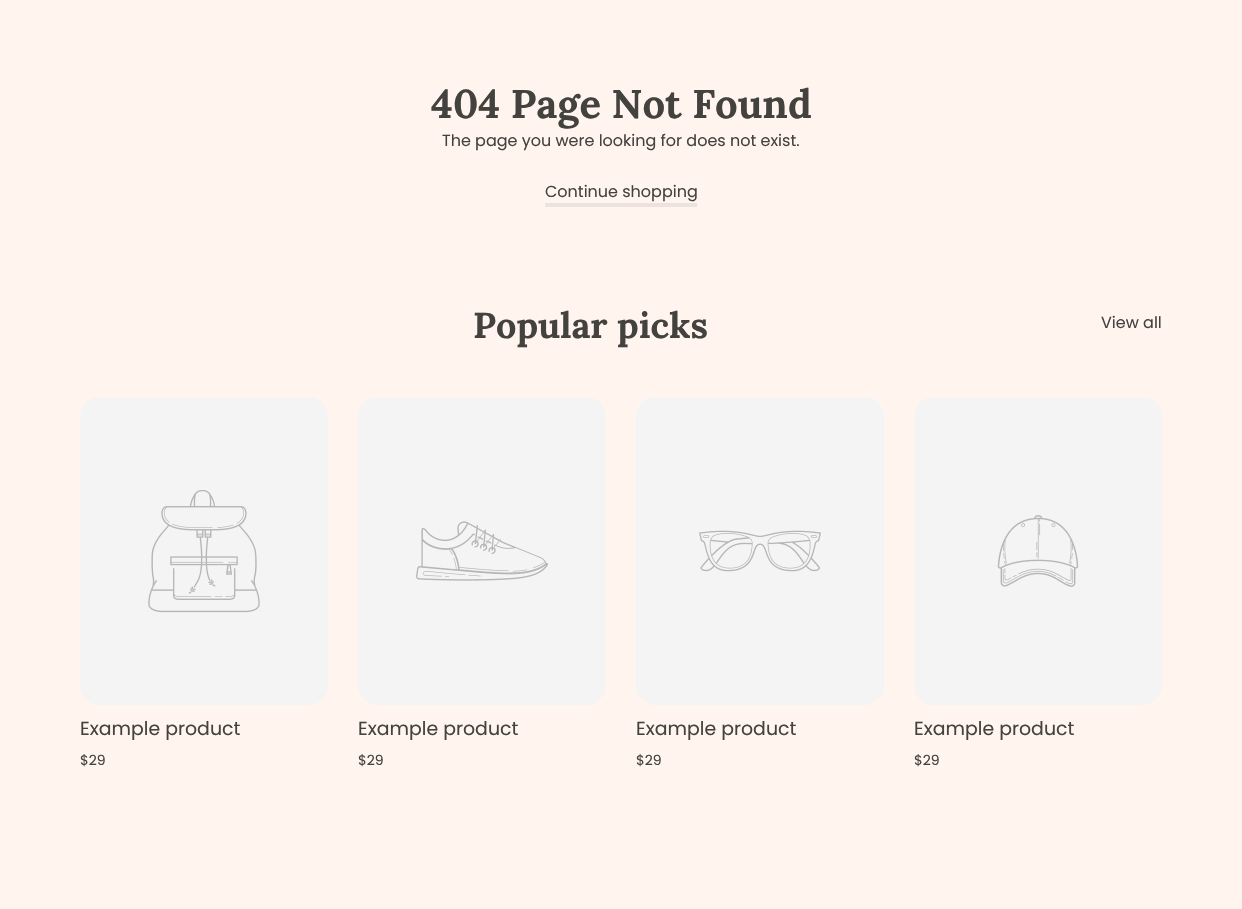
#include "include/core/SkBlurTypes.h"
#include "include/core/SkCanvas.h"
#include "include/core/SkData.h"
#include "include/core/SkFont.h"
#include "include/core/SkFontMgr.h"
#include "include/core/SkImage.h"
#include "include/core/SkMaskFilter.h"
#include "include/core/SkPaint.h"
#include "include/core/SkPathBuilder.h"
#include "include/core/SkTextBlob.h"
#include "include/effects/SkDashPathEffect.h"
#include "include/effects/SkGradientShader.h"
#include "include/utils/SkParsePath.h"

extern sk_sp<SkFontMgr> fontMgr;

static SkFont font(const char* family, int weight, float size, bool italic = false) {
    SkFontStyle style(weight, SkFontStyle::kNormal_Width,
        italic ? SkFontStyle::kItalic_Slant : SkFontStyle::kUpright_Slant);
    SkFont result(fontMgr->matchFamilyStyle(family, style), size);
    result.setSubpixel(true);
    return result;
}

static void drawLabel(SkCanvas* canvas, const char* s, float x, float y, const SkFont& font, SkColor color) {
    SkPaint ink(SkColor4f::FromColor(color));
    ink.setAntiAlias(true);
    canvas->drawString(s, x, y, font, ink);
}

static void fillRect(SkCanvas* canvas, float x, float y, float w, float h, SkColor color) {
    SkPaint ink(SkColor4f::FromColor(color));
    ink.setAntiAlias(true);
    canvas->drawRect(SkRect::MakeXYWH(x, y, w, h), ink);
}

static void fillRRect(SkCanvas* canvas, float x, float y, float w, float h, float radius, SkColor color) {
    SkPaint ink(SkColor4f::FromColor(color));
    ink.setAntiAlias(true);
    canvas->drawRoundRect(SkRect::MakeXYWH(x, y, w, h), radius, radius, ink);
}

static void drawPhoto(SkCanvas* canvas, const char* path, float x, float y, float w, float h) {
    auto image = SkImages::DeferredFromEncodedData(SkData::MakeFromFileName(path));
    canvas->drawImageRect(image, SkRect::MakeXYWH(x, y, w, h), SkSamplingOptions());
}

void draw(SkCanvas* canvas) {
    SkPaint paint;
    paint.setAntiAlias(true);
    canvas->clear(0xFFFFF5EE);
    SkFont font1 = font("Lora", 700, 40);
    drawLabel(canvas, "404 Page Not Found", 431, 118, font1, 0xFF44423F);
    SkFont font2 = font("Poppins", 400, 16);
    drawLabel(canvas, "The page you were looking for does not exist.", 442, 146, font2, 0xFF44423F);
    drawLabel(canvas, "Continue shopping", 545, 197, font2, 0xFF44423F);
    fillRect(canvas, 545, 203, 152, 4, 0xFFECE3DD);
    SkFont font3 = font("Lora", 700, 36);
    drawLabel(canvas, "Popular picks", 473, 338, font3, 0xFF44423F);
    drawLabel(canvas, "View all", 1101, 328, font2, 0xFF44423F);
    fillRRect(canvas, 80, 397, 248, 308, 20, 0xFFF4F4F4);
    drawPhoto(canvas, "assets/img1.png", 148, 490, 112, 123);
    SkFont font4 = font("Poppins", 400, 18.9f);
    drawLabel(canvas, "Example product", 80, 735, font4, 0xFF44423F);
    SkFont font5 = font("Poppins", 400, 14);
    drawLabel(canvas, "$29", 80, 765, font5, 0xFF44423F);
    fillRRect(canvas, 358, 397, 248, 308, 20, 0xFFF4F4F4);
    drawPhoto(canvas, "assets/img2.png", 416, 521, 132, 60);
    drawLabel(canvas, "Example product", 358, 735, font4, 0xFF44423F);
    drawLabel(canvas, "$29", 358, 765, font5, 0xFF44423F);
    fillRRect(canvas, 636, 397, 248, 308, 20, 0xFFF4F4F4);
    drawPhoto(canvas, "assets/img3.png", 699, 530, 122, 42);
    drawLabel(canvas, "Example product", 636, 735, font4, 0xFF44423F);
    drawLabel(canvas, "$29", 636, 765, font5, 0xFF44423F);
    fillRRect(canvas, 914, 397, 248, 308, 20, 0xFFF4F4F4);
    drawPhoto(canvas, "assets/img4.png", 997, 515, 82, 72);
    drawLabel(canvas, "Example product", 914, 735, font4, 0xFF44423F);
    drawLabel(canvas, "$29", 914, 765, font5, 0xFF44423F);
}
